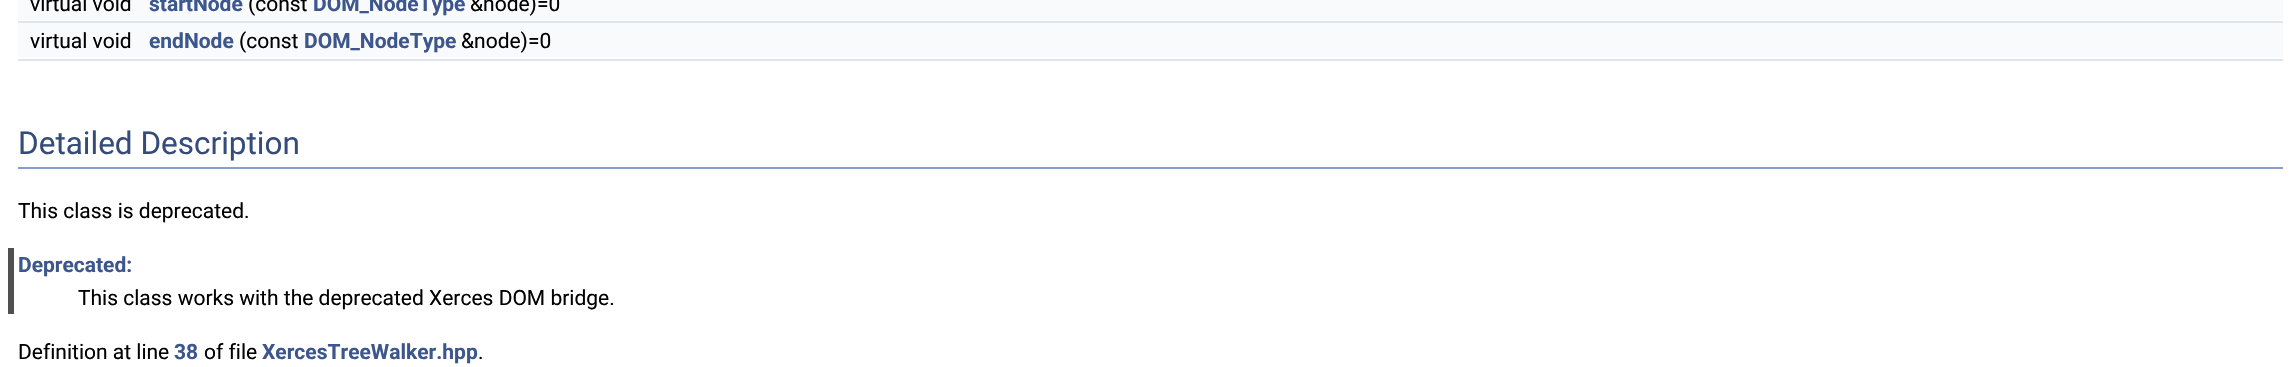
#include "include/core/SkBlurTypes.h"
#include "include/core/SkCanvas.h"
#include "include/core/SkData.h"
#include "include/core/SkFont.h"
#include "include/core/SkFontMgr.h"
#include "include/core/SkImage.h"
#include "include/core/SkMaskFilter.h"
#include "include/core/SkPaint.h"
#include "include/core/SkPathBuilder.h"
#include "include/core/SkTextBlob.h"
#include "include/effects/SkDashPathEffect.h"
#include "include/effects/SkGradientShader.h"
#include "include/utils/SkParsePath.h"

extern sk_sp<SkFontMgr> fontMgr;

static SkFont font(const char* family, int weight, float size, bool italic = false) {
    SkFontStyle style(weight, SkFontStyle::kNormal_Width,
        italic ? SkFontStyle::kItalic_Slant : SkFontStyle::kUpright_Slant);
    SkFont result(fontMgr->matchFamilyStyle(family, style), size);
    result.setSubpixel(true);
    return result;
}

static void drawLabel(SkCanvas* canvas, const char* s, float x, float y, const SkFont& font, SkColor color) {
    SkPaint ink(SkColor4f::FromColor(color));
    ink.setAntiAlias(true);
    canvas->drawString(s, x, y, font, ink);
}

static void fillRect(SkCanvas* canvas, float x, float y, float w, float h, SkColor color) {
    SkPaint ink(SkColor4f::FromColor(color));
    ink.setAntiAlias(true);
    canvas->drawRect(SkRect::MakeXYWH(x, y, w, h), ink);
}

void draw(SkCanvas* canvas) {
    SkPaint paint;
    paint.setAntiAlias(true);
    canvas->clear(0xFFFFFFFF);
    fillRect(canvas, 18, 0, 2265, 20, 0xFFF9FAFC);
    SkFont font1 = font("Roboto", 400, 21);
    drawLabel(canvas, "virtual void", 30, 11, font1, 0xFF000000);
    SkFont font2 = font("Roboto", 700, 21);
    drawLabel(canvas, "startNode", 149, 11, font2, 0xFF3D578C);
    drawLabel(canvas, "(const", 248, 11, font1, 0xFF000000);
    drawLabel(canvas, "DOM_NodeType", 313, 11, font2, 0xFF3D578C);
    drawLabel(canvas, "&node)=0", 470, 11, font1, 0xFF000000);
    fillRect(canvas, 18, 21, 2265, 2, 0xFFDEE4F0);
    fillRect(canvas, 18, 23, 2265, 34, 0xFFF9FAFC);
    drawLabel(canvas, "virtual void", 30, 48, font1, 0xFF000000);
    drawLabel(canvas, "endNode", 149, 48, font2, 0xFF3D578C);
    drawLabel(canvas, "(const", 239, 48, font1, 0xFF000000);
    drawLabel(canvas, "DOM_NodeType", 304, 48, font2, 0xFF3D578C);
    drawLabel(canvas, "&node)=0", 461, 48, font1, 0xFF000000);
    fillRect(canvas, 18, 59, 2265, 2, 0xFFDEE4F0);
    fillRect(canvas, 18, 167, 2265, 2, 0xFF879ECB);
    SkFont font3 = font("Roboto", 400, 31.5f);
    drawLabel(canvas, "Detailed Description", 18, 154, font3, 0xFF354C7B);
    drawLabel(canvas, "This class is deprecated.", 18, 218, font1, 0xFF000000);
    fillRect(canvas, 8, 248, 6, 66, 0xFF505050);
    drawLabel(canvas, "Deprecated:", 18, 272, font2, 0xFF3D578C);
    drawLabel(canvas, "This class works with the deprecated Xerces DOM bridge.", 78, 305, font1, 0xFF000000);
    drawLabel(canvas, "Definition at line", 18, 359, font1, 0xFF000000);
    drawLabel(canvas, "38", 174, 359, font2, 0xFF3D578C);
    drawLabel(canvas, "of file", 204, 359, font1, 0xFF000000);
    drawLabel(canvas, "XercesTreeWalker.hpp", 262, 359, font2, 0xFF3D578C);
    drawLabel(canvas, ".", 478, 359, font1, 0xFF000000);
}
